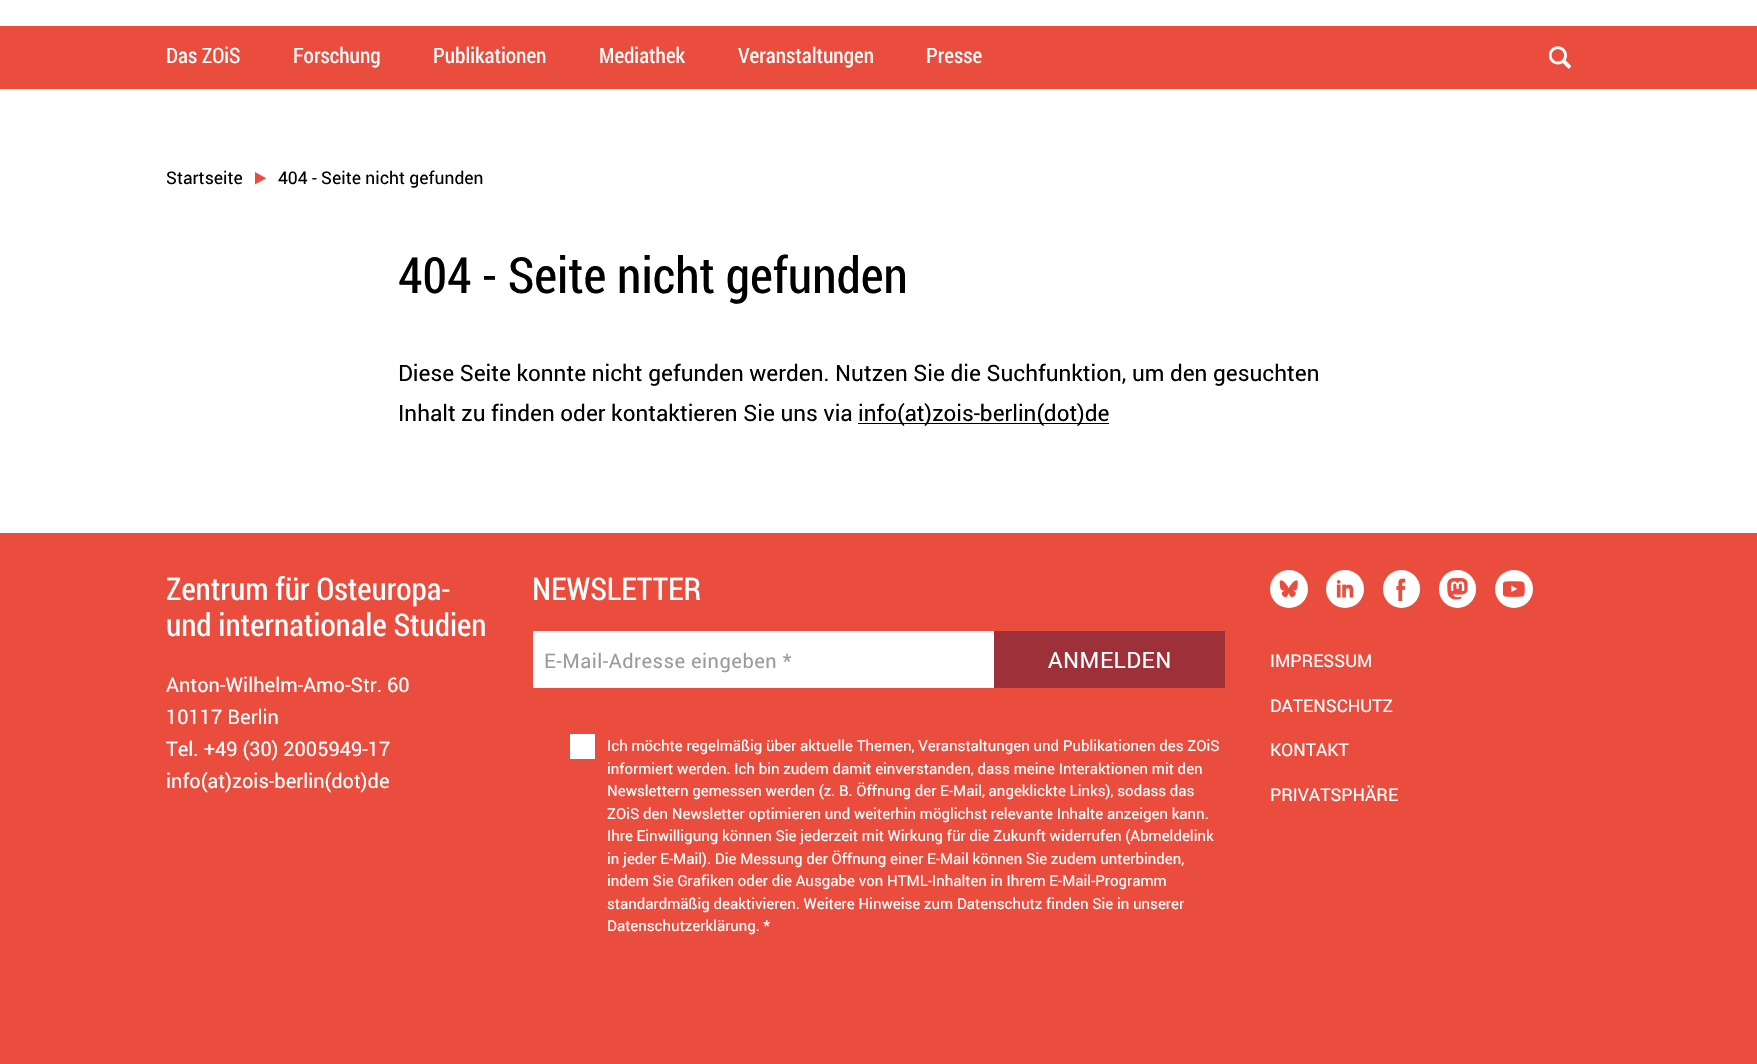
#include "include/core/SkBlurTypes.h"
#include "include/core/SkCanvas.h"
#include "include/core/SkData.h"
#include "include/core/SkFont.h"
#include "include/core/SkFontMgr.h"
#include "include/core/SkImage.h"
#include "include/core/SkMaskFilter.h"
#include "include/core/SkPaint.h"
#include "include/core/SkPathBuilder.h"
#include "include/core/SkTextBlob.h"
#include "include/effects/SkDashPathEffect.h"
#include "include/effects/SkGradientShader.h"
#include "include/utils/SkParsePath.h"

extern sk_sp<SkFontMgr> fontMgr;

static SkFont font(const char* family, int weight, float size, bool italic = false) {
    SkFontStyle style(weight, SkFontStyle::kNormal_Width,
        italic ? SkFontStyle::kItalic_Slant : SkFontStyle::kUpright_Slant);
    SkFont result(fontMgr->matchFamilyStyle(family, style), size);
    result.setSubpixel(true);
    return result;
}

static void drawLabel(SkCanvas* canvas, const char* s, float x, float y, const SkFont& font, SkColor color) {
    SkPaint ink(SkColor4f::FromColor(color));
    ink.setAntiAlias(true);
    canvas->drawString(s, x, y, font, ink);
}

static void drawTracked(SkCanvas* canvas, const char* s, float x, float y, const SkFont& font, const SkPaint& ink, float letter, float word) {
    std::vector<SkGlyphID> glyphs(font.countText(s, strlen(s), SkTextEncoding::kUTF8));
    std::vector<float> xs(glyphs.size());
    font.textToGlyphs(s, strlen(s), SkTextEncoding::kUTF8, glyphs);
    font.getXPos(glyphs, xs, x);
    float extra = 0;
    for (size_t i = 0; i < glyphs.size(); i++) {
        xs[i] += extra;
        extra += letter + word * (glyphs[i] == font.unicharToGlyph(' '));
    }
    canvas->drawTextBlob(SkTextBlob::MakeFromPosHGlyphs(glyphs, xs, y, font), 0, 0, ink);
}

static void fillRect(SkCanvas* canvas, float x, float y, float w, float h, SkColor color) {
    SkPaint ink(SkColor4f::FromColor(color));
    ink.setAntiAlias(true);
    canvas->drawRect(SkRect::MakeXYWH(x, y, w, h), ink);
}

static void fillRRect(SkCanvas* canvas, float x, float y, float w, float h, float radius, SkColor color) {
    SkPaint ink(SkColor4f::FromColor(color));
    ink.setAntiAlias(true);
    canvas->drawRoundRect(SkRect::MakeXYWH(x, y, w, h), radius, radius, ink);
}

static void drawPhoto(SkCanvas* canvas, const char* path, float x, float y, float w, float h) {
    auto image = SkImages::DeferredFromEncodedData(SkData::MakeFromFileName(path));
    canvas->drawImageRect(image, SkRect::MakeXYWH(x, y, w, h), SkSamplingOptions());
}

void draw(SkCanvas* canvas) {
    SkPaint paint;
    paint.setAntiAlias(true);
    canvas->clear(0xFFFFFFFF);
    fillRect(canvas, 0, 26, 1757, 63, 0xFFEA4D3E);
    SkFont font1 = font("Roboto Condensed", 400, 21.25f);
    drawLabel(canvas, "Das ZOiS", 166, 63, font1, 0xFFFFFFFF);
    drawLabel(canvas, "Forschung", 293, 63, font1, 0xFFFFFFFF);
    drawLabel(canvas, "Publikationen", 433, 63, font1, 0xFFFFFFFF);
    drawLabel(canvas, "Mediathek", 599, 63, font1, 0xFFFFFFFF);
    drawLabel(canvas, "Veranstaltungen", 738, 63, font1, 0xFFFFFFFF);
    drawLabel(canvas, "Presse", 926, 63, font1, 0xFFFFFFFF);
    drawPhoto(canvas, "assets/img1.png", 1549, 46, 22, 23);
    SkFont font2 = font("Roboto", 400, 17.5f);
    drawLabel(canvas, "Startseite", 166, 184, font2, 0xFF000000);
    drawPhoto(canvas, "assets/img2.png", 255, 172, 12, 13);
    drawLabel(canvas, "404 - Seite nicht gefunden", 278, 184, font2, 0xFF000000);
    SkFont font3 = font("Roboto Condensed", 400, 50);
    drawLabel(canvas, "404 - Seite nicht gefunden", 398, 293, font3, 0xFF000000);
    SkFont font4 = font("Roboto", 400, 22.5f);
    drawLabel(canvas, "Diese Seite konnte nicht gefunden werden. Nutzen Sie die Suchfunktion, um den gesuchten", 398, 381, font4, 0xFF000000);
    drawLabel(canvas, "Inhalt zu finden oder kontaktieren Sie uns via", 398, 421, font4, 0xFF000000);
    fillRect(canvas, 858, 423, 251, 1, 0xFF000000);
    drawLabel(canvas, "info(at)zois-berlin(dot)de", 858, 421, font4, 0xFF000000);
    fillRect(canvas, 0, 533, 1757, 531, 0xFFEA4D3E);
    SkFont font5 = font("Roboto Condensed", 400, 31.25f);
    drawLabel(canvas, "Zentrum für Osteuropa-", 166, 600, font5, 0xFFFFFFFF);
    drawLabel(canvas, "und internationale Studien", 166, 636, font5, 0xFFFFFFFF);
    SkFont font6 = font("Roboto", 400, 20);
    drawLabel(canvas, "Anton-Wilhelm-Amo-Str. 60", 166, 692, font6, 0xFFFFFFFF);
    drawLabel(canvas, "10117 Berlin", 166, 724, font6, 0xFFFFFFFF);
    drawLabel(canvas, "Tel. +49 (30) 2005949-17", 166, 756, font6, 0xFFFFFFFF);
    drawLabel(canvas, "info(at)zois-berlin(dot)de", 166, 788, font6, 0xFFFFFFFF);
    drawLabel(canvas, "NEWSLETTER", 532, 600, font5, 0xFFFFFFFF);
    fillRect(canvas, 533, 631, 461, 57, 0xFFFFFFFF);
    paint.setColor(0xFF9B9B9B);
    drawTracked(canvas, "E-Mail-Adresse eingeben *", 544, 668, font6, paint, 0.5f, 0);
    fillRect(canvas, 994, 631, 231, 57, 0xFF9E3039);
    paint.setColor(0xFFFFFFFF);
    drawTracked(canvas, "ANMELDEN", 1048, 668, font4, paint, 0.5f, 0);
    fillRect(canvas, 570, 734, 25, 25, 0xFFFFFFFF);
    SkFont font7 = font("Roboto", 400, 15);
    drawLabel(canvas, "Ich möchte regelmäßig über aktuelle Themen, Veranstaltungen und Publikationen des ZOiS", 607, 751, font7, 0xFFFFFFFF);
    drawLabel(canvas, "informiert werden. Ich bin zudem damit einverstanden, dass meine Interaktionen mit den", 607, 774, font7, 0xFFFFFFFF);
    drawLabel(canvas, "Newslettern gemessen werden (z. B. Öffnung der E-Mail, angeklickte Links), sodass das", 607, 796, font7, 0xFFFFFFFF);
    drawLabel(canvas, "ZOiS den Newsletter optimieren und weiterhin möglichst relevante Inhalte anzeigen kann.", 607, 819, font7, 0xFFFFFFFF);
    drawLabel(canvas, "Ihre Einwilligung können Sie jederzeit mit Wirkung für die Zukunft widerrufen (Abmeldelink", 607, 841, font7, 0xFFFFFFFF);
    drawLabel(canvas, "in jeder E-Mail). Die Messung der Öffnung einer E-Mail können Sie zudem unterbinden,", 607, 864, font7, 0xFFFFFFFF);
    drawLabel(canvas, "indem Sie Grafiken oder die Ausgabe von HTML-Inhalten in Ihrem E-Mail-Programm", 607, 886, font7, 0xFFFFFFFF);
    drawLabel(canvas, "standardmäßig deaktivieren. Weitere Hinweise zum Datenschutz finden Sie in unserer", 607, 909, font7, 0xFFFFFFFF);
    drawLabel(canvas, "Datenschutzerklärung. *", 607, 931, font7, 0xFFFFFFFF);
    canvas->drawCircle(1289, 589, 19, paint);
    drawPhoto(canvas, "assets/img3.png", 1279, 580, 19, 18);
    canvas->drawCircle(1345, 589, 19, paint);
    drawPhoto(canvas, "assets/img4.png", 1336, 580, 18, 18);
    fillRRect(canvas, 1383, 570, 37, 38, 18.5f, 0xFFFFFFFF);
    drawPhoto(canvas, "assets/img5.png", 1396, 578, 10, 23);
    fillRRect(canvas, 1439, 570, 37, 38, 18.5f, 0xFFFFFFFF);
    drawPhoto(canvas, "assets/img6.png", 1447, 578, 21, 22);
    canvas->drawCircle(1514, 589, 19, paint);
    drawPhoto(canvas, "assets/img7.png", 1503, 581, 22, 16);
    drawLabel(canvas, "IMPRESSUM", 1270, 667, font2, 0xFFFFFFFF);
    drawLabel(canvas, "DATENSCHUTZ", 1270, 712, font2, 0xFFFFFFFF);
    drawLabel(canvas, "KONTAKT", 1270, 756, font2, 0xFFFFFFFF);
    drawLabel(canvas, "PRIVATSPHÄRE", 1270, 801, font2, 0xFFFFFFFF);
}
